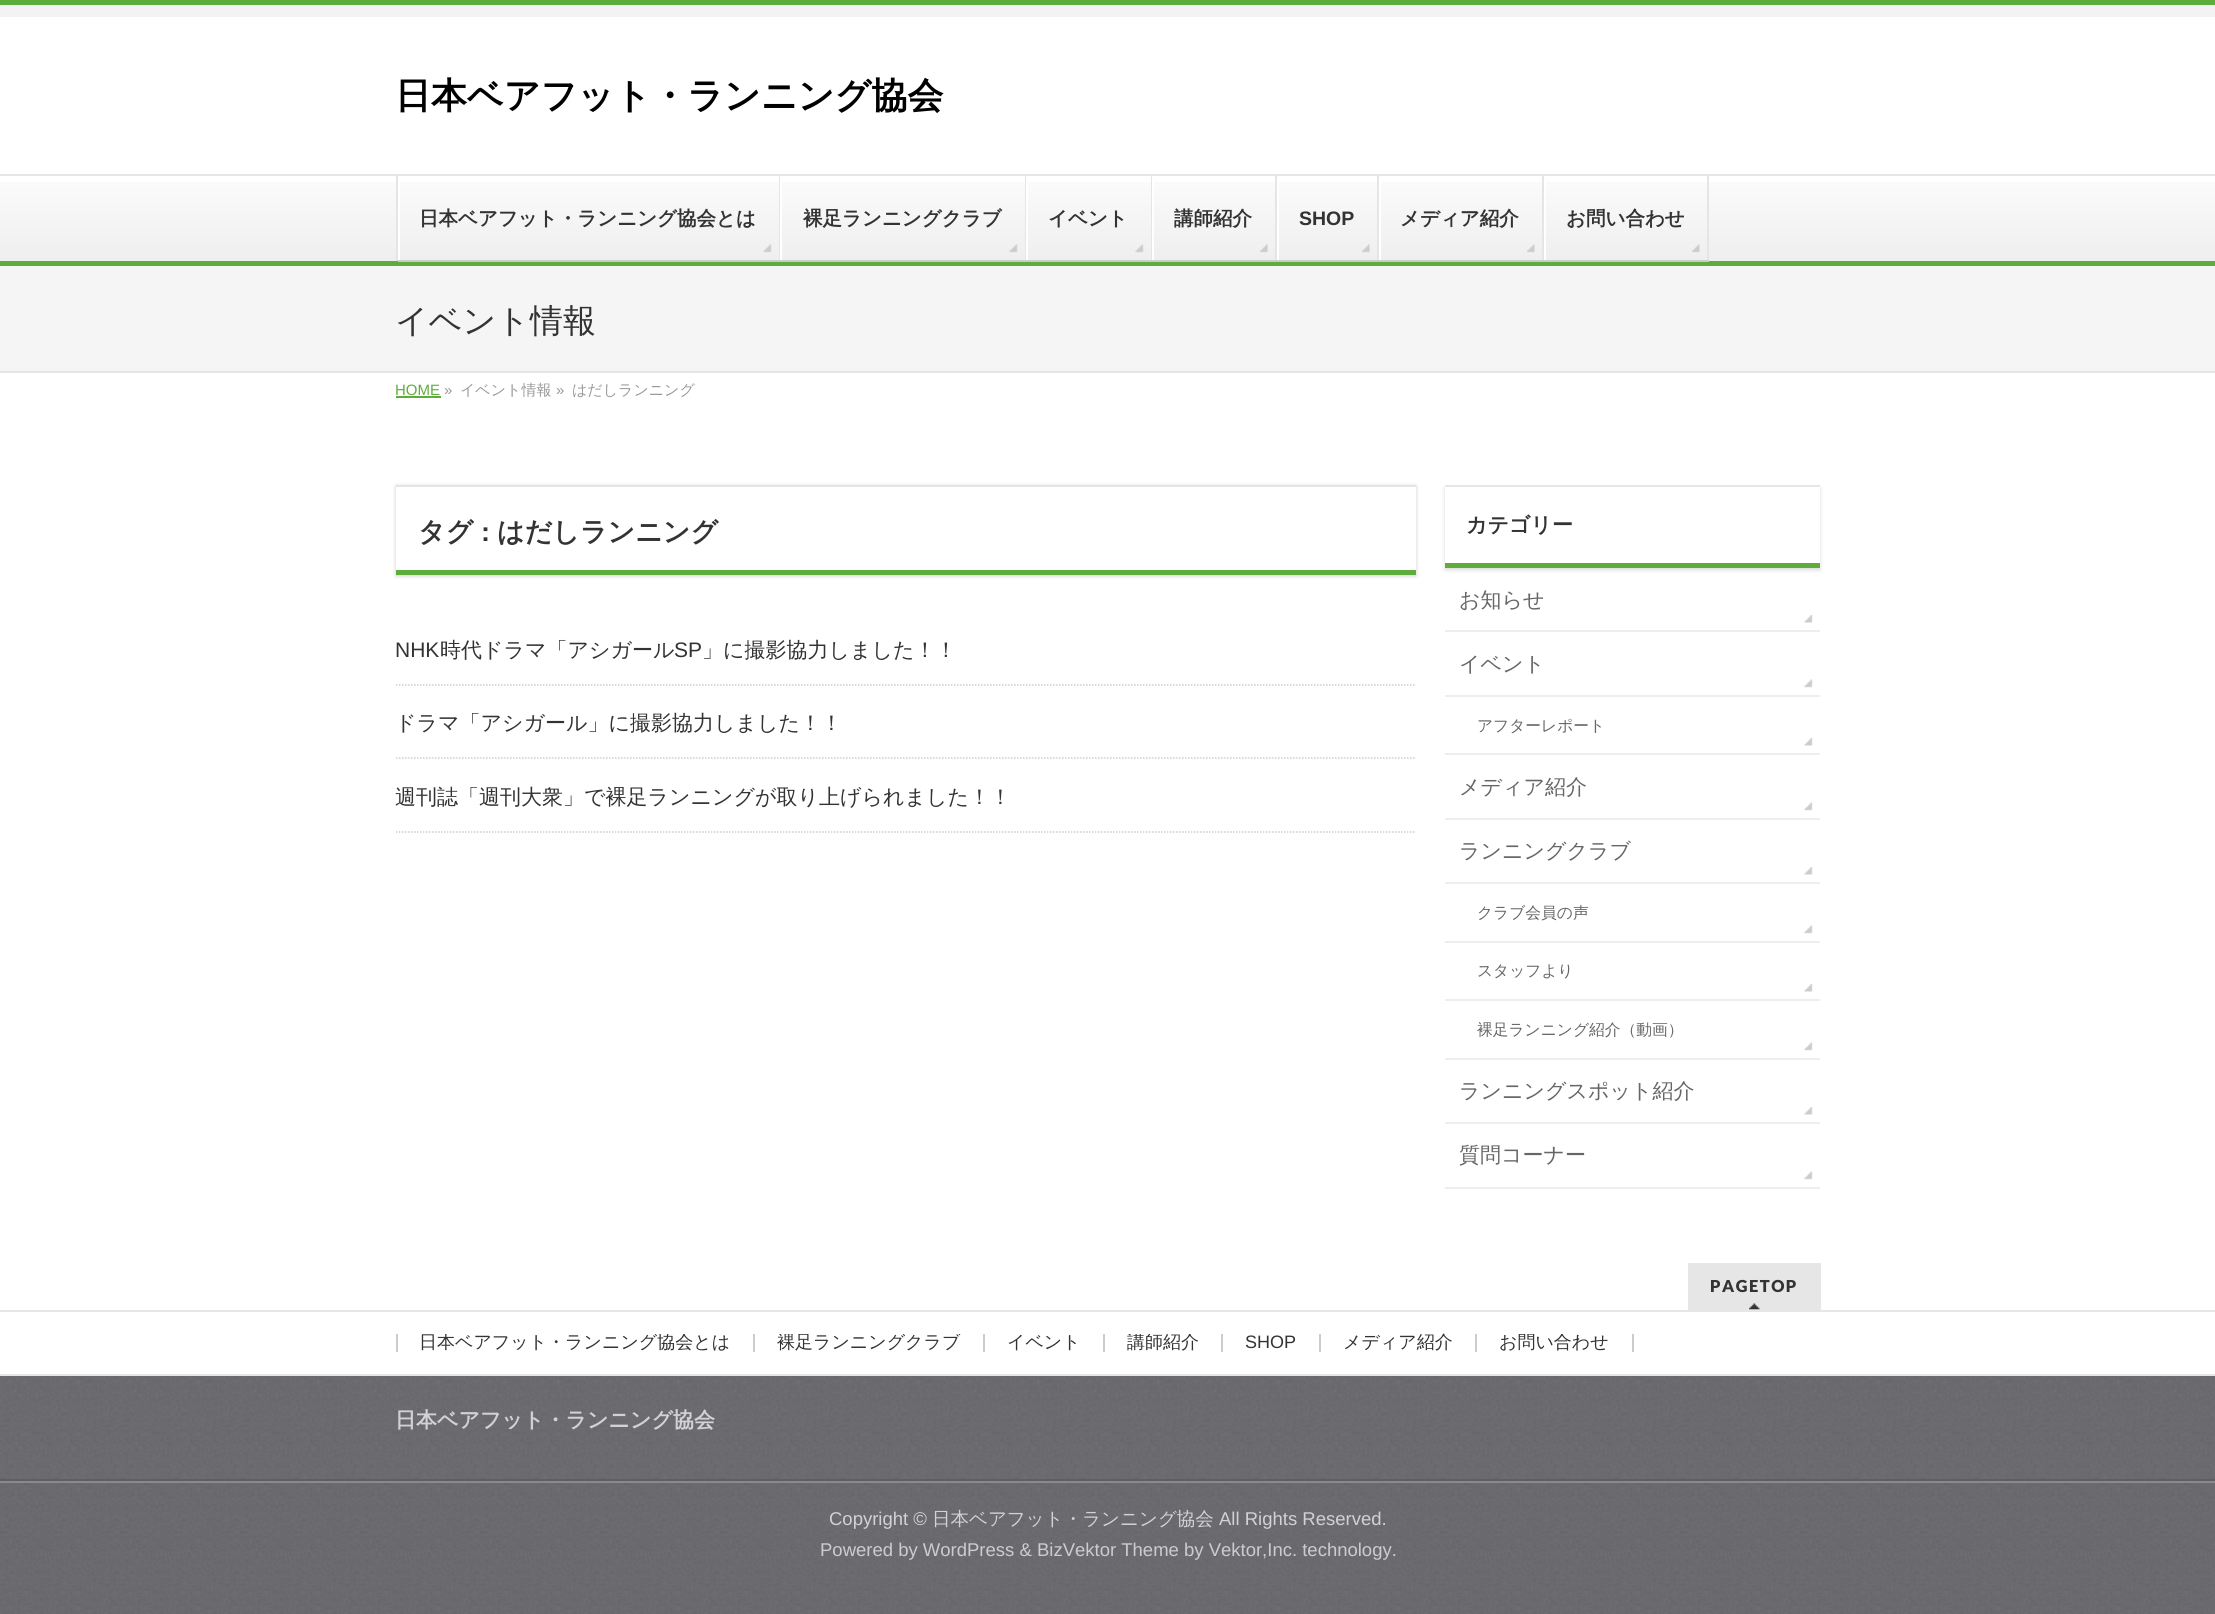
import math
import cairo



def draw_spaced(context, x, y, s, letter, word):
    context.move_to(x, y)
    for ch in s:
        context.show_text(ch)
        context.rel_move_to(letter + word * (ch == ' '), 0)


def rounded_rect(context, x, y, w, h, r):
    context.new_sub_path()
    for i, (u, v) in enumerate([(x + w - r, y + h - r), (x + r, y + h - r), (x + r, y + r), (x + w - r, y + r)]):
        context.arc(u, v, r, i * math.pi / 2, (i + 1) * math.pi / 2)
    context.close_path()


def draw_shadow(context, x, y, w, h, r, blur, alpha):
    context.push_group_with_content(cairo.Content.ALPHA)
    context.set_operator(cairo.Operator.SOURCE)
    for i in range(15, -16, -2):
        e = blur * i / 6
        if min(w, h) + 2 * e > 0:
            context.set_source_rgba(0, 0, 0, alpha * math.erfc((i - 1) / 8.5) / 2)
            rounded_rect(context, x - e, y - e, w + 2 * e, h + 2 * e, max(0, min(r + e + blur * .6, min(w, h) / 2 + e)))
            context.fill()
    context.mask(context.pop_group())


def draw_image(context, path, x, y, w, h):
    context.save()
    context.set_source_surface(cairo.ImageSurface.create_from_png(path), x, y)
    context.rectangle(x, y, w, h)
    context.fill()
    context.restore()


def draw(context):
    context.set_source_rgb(1, 1, 1)
    context.paint()
    context.set_source_rgb(243 / 255, 243 / 255, 243 / 255)
    context.rectangle(0, 5, 2215, 12)
    context.fill()
    context.set_source_rgb(94 / 255, 173 / 255, 60 / 255)
    context.rectangle(0, 0, 2215, 5)
    context.fill()
    draw_image(context, "images/1.png", 0, 182, 2215, 79)
    context.set_source_rgb(229 / 255, 229 / 255, 229 / 255)
    context.rectangle(0, 174, 2215, 2)
    context.fill()
    context.set_source_rgb(94 / 255, 173 / 255, 60 / 255)
    context.rectangle(0, 261, 2215, 5)
    context.fill()
    context.set_source_rgb(229 / 255, 229 / 255, 229 / 255)
    context.rectangle(396, 176, 2, 85)
    context.fill()
    context.set_source_rgb(1, 1, 1)
    context.rectangle(398, 176, 2, 85)
    context.fill()
    draw_image(context, "images/2.png", 763, 244, 9, 9)
    context.set_source_rgb(229 / 255, 229 / 255, 229 / 255)
    context.rectangle(779, 176, 1, 85)
    context.fill()
    context.set_source_rgb(204 / 255, 204 / 255, 204 / 255)
    context.rectangle(398, 260, 382, 2)
    context.fill()
    context.set_source_rgb(1, 1, 1)
    context.rectangle(780, 176, 2, 85)
    context.fill()
    draw_image(context, "images/2.png", 1009, 244, 9, 9)
    context.set_source_rgb(229 / 255, 229 / 255, 229 / 255)
    context.rectangle(1025, 176, 1, 85)
    context.fill()
    context.set_source_rgb(204 / 255, 204 / 255, 204 / 255)
    context.rectangle(780, 260, 246, 2)
    context.fill()
    context.set_source_rgb(1, 1, 1)
    context.rectangle(1026, 176, 2, 85)
    context.fill()
    draw_image(context, "images/3.png", 1135, 244, 9, 9)
    context.set_source_rgb(229 / 255, 229 / 255, 229 / 255)
    context.rectangle(1151, 176, 1, 85)
    context.fill()
    context.set_source_rgb(204 / 255, 204 / 255, 204 / 255)
    context.rectangle(1026, 260, 126, 2)
    context.fill()
    context.set_source_rgb(1, 1, 1)
    context.rectangle(1152, 176, 2, 85)
    context.fill()
    draw_image(context, "images/4.png", 1260, 244, 8, 9)
    context.set_source_rgb(229 / 255, 229 / 255, 229 / 255)
    context.rectangle(1275, 176, 2, 85)
    context.fill()
    context.set_source_rgb(204 / 255, 204 / 255, 204 / 255)
    context.rectangle(1152, 260, 125, 2)
    context.fill()
    context.set_source_rgb(1, 1, 1)
    context.rectangle(1277, 176, 2, 85)
    context.fill()
    draw_image(context, "images/4.png", 1362, 244, 8, 9)
    context.set_source_rgb(229 / 255, 229 / 255, 229 / 255)
    context.rectangle(1377, 176, 2, 85)
    context.fill()
    context.set_source_rgb(204 / 255, 204 / 255, 204 / 255)
    context.rectangle(1277, 260, 102, 2)
    context.fill()
    context.set_source_rgb(1, 1, 1)
    context.rectangle(1379, 176, 2, 85)
    context.fill()
    draw_image(context, "images/5.png", 1527, 244, 8, 9)
    context.set_source_rgb(229 / 255, 229 / 255, 229 / 255)
    context.rectangle(1542, 176, 2, 85)
    context.fill()
    context.set_source_rgb(204 / 255, 204 / 255, 204 / 255)
    context.rectangle(1379, 260, 165, 2)
    context.fill()
    context.set_source_rgb(1, 1, 1)
    context.rectangle(1544, 176, 2, 85)
    context.fill()
    draw_image(context, "images/5.png", 1692, 244, 8, 9)
    context.set_source_rgb(229 / 255, 229 / 255, 229 / 255)
    context.rectangle(1707, 176, 2, 85)
    context.fill()
    context.set_source_rgb(204 / 255, 204 / 255, 204 / 255)
    context.rectangle(1544, 260, 165, 2)
    context.fill()
    context.set_source_rgb(245 / 255, 245 / 255, 245 / 255)
    context.rectangle(0, 266, 2215, 105)
    context.fill()
    context.set_source_rgb(229 / 255, 229 / 255, 229 / 255)
    context.rectangle(0, 371, 2215, 2)
    context.fill()
    context.set_source_rgb(94 / 255, 173 / 255, 60 / 255)
    context.rectangle(396, 396, 45, 2)
    context.fill()
    context.save()
    context.set_fill_rule(cairo.FillRule.EVEN_ODD)
    context.new_path()
    context.move_to(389, 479)
    context.line_to(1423, 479)
    context.line_to(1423, 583)
    context.line_to(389, 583)
    context.close_path()
    context.move_to(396, 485)
    context.line_to(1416, 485)
    context.line_to(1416, 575)
    context.line_to(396, 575)
    context.close_path()
    context.clip()
    context.set_source_rgb(0, 0, 0)
    draw_shadow(context, 396, 486, 1020, 90, 0, 2, 0.2)
    context.restore()
    context.set_source_rgb(229 / 255, 229 / 255, 229 / 255)
    context.rectangle(396, 485, 1020, 2)
    context.fill()
    context.set_source_rgb(94 / 255, 173 / 255, 60 / 255)
    context.rectangle(396, 570, 1020, 5)
    context.fill()
    context.new_path()
    context.move_to(396, 685)
    context.line_to(1416, 685)
    context.set_source_rgb(204 / 255, 204 / 255, 204 / 255)
    context.set_line_width(1.5)
    context.set_dash([1.5, 1.5])
    context.stroke()
    context.new_path()
    context.move_to(396, 758)
    context.line_to(1416, 758)
    context.stroke()
    context.new_path()
    context.move_to(396, 832)
    context.line_to(1416, 832)
    context.stroke()
    context.save()
    context.set_fill_rule(cairo.FillRule.EVEN_ODD)
    context.new_path()
    context.move_to(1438, 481)
    context.line_to(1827, 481)
    context.line_to(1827, 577)
    context.line_to(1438, 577)
    context.close_path()
    context.move_to(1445, 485)
    context.line_to(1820, 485)
    context.line_to(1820, 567)
    context.line_to(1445, 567)
    context.close_path()
    context.clip()
    context.set_source_rgb(0, 0, 0)
    draw_shadow(context, 1445, 488, 375, 82, 0, 2, 0.15)
    context.restore()
    context.set_source_rgb(229 / 255, 229 / 255, 229 / 255)
    context.rectangle(1445, 485, 375, 2)
    context.fill()
    context.set_source_rgb(94 / 255, 173 / 255, 60 / 255)
    context.rectangle(1445, 563, 375, 5)
    context.fill()
    context.set_source_rgb(238 / 255, 238 / 255, 238 / 255)
    context.rectangle(1445, 630, 375, 2)
    context.fill()
    draw_image(context, "images/6.png", 1804, 615, 9, 8)
    context.rectangle(1445, 753, 375, 2)
    context.fill()
    draw_image(context, "images/7.png", 1804, 679, 9, 9)
    context.rectangle(1445, 695, 375, 2)
    context.fill()
    draw_image(context, "images/6.png", 1804, 738, 9, 8)
    context.rectangle(1445, 818, 375, 2)
    context.fill()
    draw_image(context, "images/7.png", 1804, 802, 9, 9)
    context.rectangle(1445, 1058, 375, 2)
    context.fill()
    draw_image(context, "images/6.png", 1804, 867, 9, 8)
    context.rectangle(1445, 882, 375, 2)
    context.fill()
    draw_image(context, "images/7.png", 1804, 925, 9, 9)
    context.rectangle(1445, 941, 375, 2)
    context.fill()
    draw_image(context, "images/6.png", 1804, 984, 9, 8)
    context.rectangle(1445, 999, 375, 2)
    context.fill()
    draw_image(context, "images/7.png", 1804, 1042, 9, 9)
    context.rectangle(1445, 1122, 375, 2)
    context.fill()
    draw_image(context, "images/6.png", 1804, 1107, 9, 8)
    context.rectangle(1445, 1187, 375, 2)
    context.fill()
    draw_image(context, "images/7.png", 1804, 1171, 9, 9)
    context.set_source_rgb(230 / 255, 230 / 255, 230 / 255)
    context.rectangle(1688, 1263, 133, 47)
    context.fill()
    draw_image(context, "images/8.png", 1749, 1303, 11, 7)
    context.rectangle(0, 1310, 2215, 2)
    context.fill()
    context.rectangle(0, 1374, 2215, 2)
    context.fill()
    context.set_source_rgb(204 / 255, 204 / 255, 204 / 255)
    context.rectangle(753, 1334, 2, 18)
    context.fill()
    context.rectangle(396, 1334, 2, 18)
    context.fill()
    context.rectangle(983, 1334, 2, 18)
    context.fill()
    context.rectangle(1103, 1334, 2, 18)
    context.fill()
    context.rectangle(1221, 1334, 2, 18)
    context.fill()
    context.rectangle(1319, 1334, 2, 18)
    context.fill()
    context.rectangle(1475, 1334, 2, 18)
    context.fill()
    context.rectangle(1632, 1334, 2, 18)
    context.fill()
    draw_image(context, "images/9.png", 0, 1376, 2215, 103)
    context.set_source_rgb(95 / 255, 94 / 255, 99 / 255)
    context.rectangle(0, 1479, 2215, 2)
    context.fill()
    draw_image(context, "images/10.png", 0, 1483, 2215, 131)
    context.set_source_rgb(138 / 255, 137 / 255, 140 / 255)
    context.rectangle(0, 1481, 2215, 2)
    context.fill()
    context.select_font_face("WenQuanYi Zen Hei", cairo.FontSlant.NORMAL, cairo.FontWeight.BOLD)
    context.set_font_size(36)
    context.set_source_rgb(0, 0, 0)
    context.move_to(395, 108)
    context.show_text("日本ベアフット・ランニング協会")
    context.set_font_size(19.5)
    context.set_source_rgb(51 / 255, 51 / 255, 51 / 255)
    context.move_to(419, 225)
    context.show_text("日本ベアフット・ランニング協会とは")
    context.move_to(803, 225)
    context.show_text("裸足ランニングクラブ")
    context.move_to(1048, 225)
    context.show_text("イベント")
    context.move_to(1174, 225)
    context.show_text("講師紹介")
    context.select_font_face("Liberation Sans", cairo.FontSlant.NORMAL, cairo.FontWeight.BOLD)
    context.move_to(1299, 225)
    context.show_text("SHOP")
    context.select_font_face("WenQuanYi Zen Hei", cairo.FontSlant.NORMAL, cairo.FontWeight.BOLD)
    context.move_to(1400, 225)
    context.show_text("メディア紹介")
    context.move_to(1566, 225)
    context.show_text("お問い合わせ")
    context.select_font_face("WenQuanYi Zen Hei Medium")
    context.set_font_size(33)
    context.move_to(395, 332)
    context.show_text("イベント情報")
    context.select_font_face("Liberation Sans")
    context.set_font_size(15)
    context.set_source_rgb(94 / 255, 173 / 255, 60 / 255)
    context.move_to(395, 395)
    context.show_text("HOME")
    context.set_source_rgb(153 / 255, 153 / 255, 153 / 255)
    context.move_to(444, 395)
    context.show_text("»")
    context.select_font_face("WenQuanYi Zen Hei Medium")
    context.move_to(460, 395)
    context.show_text("イベント情報")
    context.select_font_face("Liberation Sans")
    context.move_to(556, 395)
    context.show_text("»")
    context.select_font_face("WenQuanYi Zen Hei Medium")
    context.move_to(572, 395)
    context.show_text("はだしランニング")
    context.select_font_face("WenQuanYi Zen Hei", cairo.FontSlant.NORMAL, cairo.FontWeight.BOLD)
    context.set_font_size(27)
    context.set_source_rgb(51 / 255, 51 / 255, 51 / 255)
    context.move_to(418, 541)
    context.show_text("タグ")
    context.select_font_face("Liberation Sans", cairo.FontSlant.NORMAL, cairo.FontWeight.BOLD)
    context.move_to(481, 541)
    context.show_text(":")
    context.select_font_face("WenQuanYi Zen Hei", cairo.FontSlant.NORMAL, cairo.FontWeight.BOLD)
    context.move_to(497, 541)
    context.show_text("はだしランニング")
    context.select_font_face("Liberation Sans")
    context.set_font_size(21)
    context.move_to(395, 657)
    context.show_text("NHK")
    context.select_font_face("WenQuanYi Zen Hei Medium")
    context.move_to(440, 657)
    context.show_text("時代ドラマ「アシガール")
    context.select_font_face("Liberation Sans")
    context.move_to(674, 657)
    context.show_text("SP")
    context.select_font_face("WenQuanYi Zen Hei Medium")
    context.move_to(702, 657)
    context.show_text("」に撮影協力しました！！")
    context.move_to(395, 730)
    context.show_text("ドラマ「アシガール」に撮影協力しました！！")
    context.move_to(395, 804)
    context.show_text("週刊誌「週刊大衆」で裸足ランニングが取り上げられました！！")
    context.select_font_face("WenQuanYi Zen Hei", cairo.FontSlant.NORMAL, cairo.FontWeight.BOLD)
    context.move_to(1466, 532)
    context.show_text("カテゴリー")
    context.select_font_face("WenQuanYi Zen Hei Medium")
    context.set_source_rgb(102 / 255, 102 / 255, 102 / 255)
    context.move_to(1459, 607)
    context.show_text("お知らせ")
    context.move_to(1459, 671)
    context.show_text("イベント")
    context.set_font_size(15.75)
    context.move_to(1477, 731)
    context.show_text("アフターレポート")
    context.set_font_size(21)
    context.move_to(1459, 794)
    context.show_text("メディア紹介")
    context.move_to(1459, 858)
    context.show_text("ランニングクラブ")
    context.set_font_size(15.75)
    context.move_to(1477, 918)
    context.show_text("クラブ会員の声")
    context.move_to(1477, 976)
    context.show_text("スタッフより")
    context.move_to(1477, 1035)
    context.show_text("裸足ランニング紹介（動画）")
    context.set_font_size(21)
    context.move_to(1459, 1098)
    context.show_text("ランニングスポット紹介")
    context.move_to(1459, 1162)
    context.show_text("質問コーナー")
    context.select_font_face("Lato Black")
    context.set_font_size(16.5)
    context.set_source_rgb(51 / 255, 51 / 255, 51 / 255)
    draw_spaced(context, 1710, 1292, "PAGETOP", 1.5, 0)
    context.save()
    context.rectangle(398, 1334, 355, 18)
    context.clip()
    context.select_font_face("WenQuanYi Zen Hei Medium")
    context.set_font_size(18)
    context.move_to(419, 1348)
    context.show_text("日本ベアフット・ランニング協会とは")
    context.restore()
    context.save()
    context.rectangle(755, 1334, 228, 18)
    context.clip()
    context.select_font_face("WenQuanYi Zen Hei Medium")
    context.set_font_size(18)
    context.move_to(777, 1348)
    context.show_text("裸足ランニングクラブ")
    context.restore()
    context.select_font_face("WenQuanYi Zen Hei Medium")
    context.set_font_size(18)
    context.move_to(1007, 1348)
    context.show_text("イベント")
    context.save()
    context.rectangle(1104, 1334, 117, 18)
    context.clip()
    context.move_to(1127, 1348)
    context.show_text("講師紹介")
    context.restore()
    context.select_font_face("Liberation Sans")
    context.move_to(1245, 1348)
    context.show_text("SHOP")
    context.select_font_face("WenQuanYi Zen Hei Medium")
    context.move_to(1343, 1348)
    context.show_text("メディア紹介")
    context.save()
    context.rectangle(1476, 1334, 156, 18)
    context.clip()
    context.move_to(1499, 1348)
    context.show_text("お問い合わせ")
    context.restore()
    context.select_font_face("WenQuanYi Zen Hei", cairo.FontSlant.NORMAL, cairo.FontWeight.BOLD)
    context.set_font_size(21)
    context.set_source_rgb(210 / 255, 210 / 255, 211 / 255)
    context.move_to(395, 1427)
    context.show_text("日本ベアフット・ランニング協会")
    context.select_font_face("Liberation Sans")
    context.set_font_size(18.5)
    context.move_to(829, 1525)
    context.show_text("Copyright ©")
    context.select_font_face("WenQuanYi Zen Hei Medium")
    context.move_to(932, 1525)
    context.show_text("日本ベアフット・ランニング協会")
    context.select_font_face("Liberation Sans")
    context.move_to(1219, 1525)
    context.show_text("All Rights Reserved.")
    context.set_source_rgb(204 / 255, 204 / 255, 204 / 255)
    context.move_to(820, 1556)
    context.show_text("Powered by WordPress & BizVektor Theme by Vektor,Inc. technology.")


surface = cairo.ImageSurface(cairo.Format.RGB24, 2215, 1614)
context = cairo.Context(surface)
options = cairo.FontOptions()
options.set_hint_metrics(cairo.HintMetrics.OFF)
options.set_hint_style(cairo.HintStyle.NONE)
context.set_font_options(options)
context.set_miter_limit(4)
draw(context)
surface.write_to_png("out.png")
